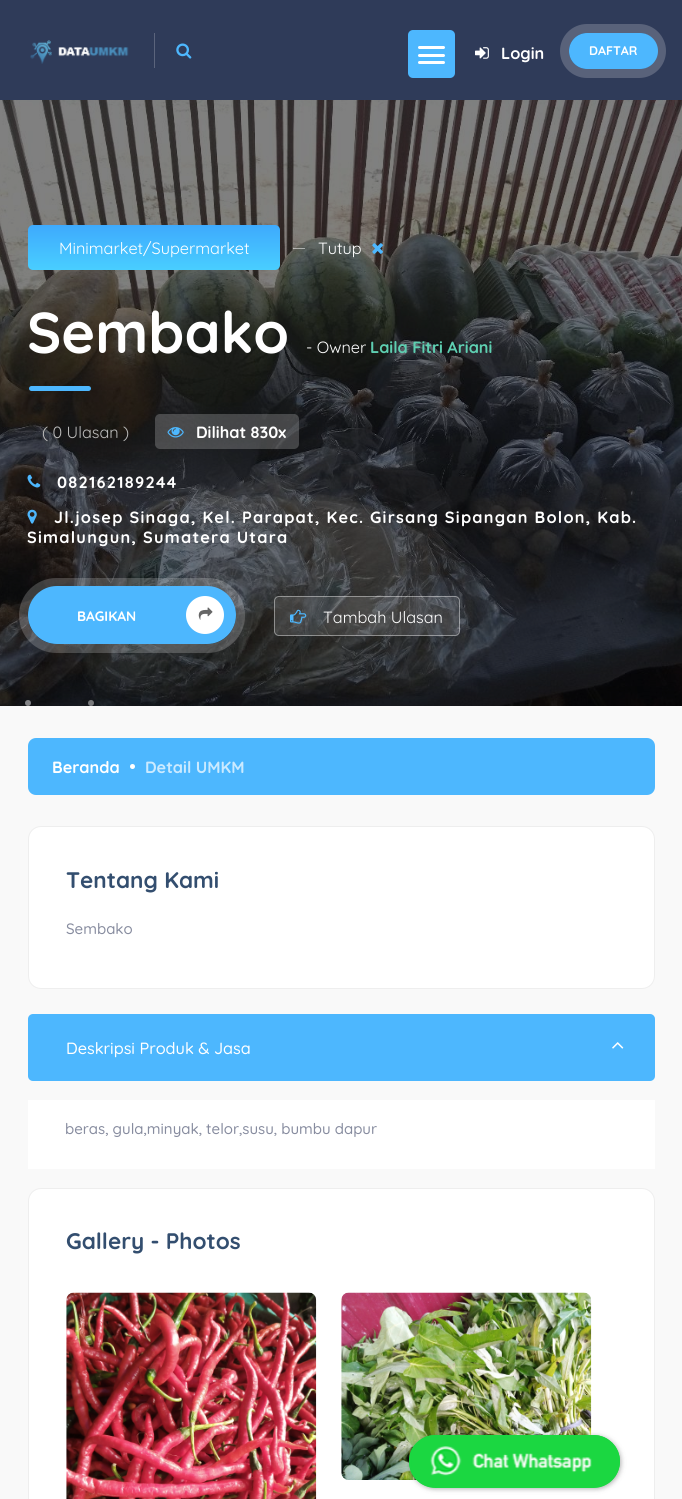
import math
import cairo



def draw_spaced(context, x, y, s, letter, word):
    context.move_to(x, y)
    for ch in s:
        context.show_text(ch)
        context.rel_move_to(letter + word * (ch == ' '), 0)


def rounded_rect(context, x, y, w, h, r):
    context.new_sub_path()
    for i, (u, v) in enumerate([(x + w - r, y + h - r), (x + r, y + h - r), (x + r, y + r), (x + w - r, y + r)]):
        context.arc(u, v, r, i * math.pi / 2, (i + 1) * math.pi / 2)
    context.close_path()


def draw_shadow(context, x, y, w, h, r, blur, alpha):
    context.push_group_with_content(cairo.Content.ALPHA)
    context.set_operator(cairo.Operator.SOURCE)
    for i in range(15, -16, -2):
        e = blur * i / 6
        if min(w, h) + 2 * e > 0:
            context.set_source_rgba(0, 0, 0, alpha * math.erfc((i - 1) / 8.5) / 2)
            rounded_rect(context, x - e, y - e, w + 2 * e, h + 2 * e, max(0, min(r + e + blur * .6, min(w, h) / 2 + e)))
            context.fill()
    context.mask(context.pop_group())


def draw_image(context, path, x, y, w, h):
    context.save()
    context.set_source_surface(cairo.ImageSurface.create_from_png(path), x, y)
    context.rectangle(x, y, w, h)
    context.fill()
    context.restore()


def draw(context):
    context.set_source_rgb(47 / 255, 59 / 255, 89 / 255)
    context.paint()
    draw_image(context, "images/1.png", 30, 40, 99, 24)
    context.set_source_rgb(91 / 255, 100 / 255, 124 / 255)
    context.rectangle(154, 33, 1, 35)
    context.fill()
    draw_image(context, "images/2.png", 176, 43, 16, 16)
    context.set_source_rgb(77 / 255, 183 / 255, 254 / 255)
    rounded_rect(context, 408, 30, 47, 48, 5)
    context.fill()
    context.set_source_rgb(1, 1, 1)
    rounded_rect(context, 418, 46, 27, 3, 1.5)
    context.fill()
    rounded_rect(context, 418, 54, 27, 3, 1.5)
    context.fill()
    rounded_rect(context, 418, 61, 27, 3, 1.5)
    context.fill()
    draw_image(context, "images/3.png", 475, 47, 14, 12)
    rounded_rect(context, 564.5, 28.5, 97, 45, 22.5)
    context.set_source_rgb(89 / 255, 98 / 255, 122 / 255)
    context.set_line_width(9)
    context.stroke()
    context.set_source_rgb(77 / 255, 183 / 255, 254 / 255)
    rounded_rect(context, 569, 33, 89, 36, 18)
    context.fill()
    draw_image(context, "images/4.png", 0, 100, 682, 606)
    gradient = cairo.LinearGradient(154, 225, 154, 270)
    gradient.add_color_stop_rgba(0, 62 / 255, 170 / 255, 253 / 255, 1)
    gradient.add_color_stop_rgba(1, 73 / 255, 206 / 255, 1, 1)
    context.set_source(gradient)
    rounded_rect(context, 28, 225, 252, 45, 5)
    context.fill()
    context.set_source_rgba(1, 1, 1, 0.51)
    context.rectangle(293, 248, 12, 1)
    context.fill()
    draw_image(context, "images/5.png", 372, 243, 11, 11)
    context.set_source_rgb(77 / 255, 183 / 255, 254 / 255)
    rounded_rect(context, 29, 386, 62, 5, 2.5)
    context.fill()
    context.set_source_rgba(1, 1, 1, 0.21)
    rounded_rect(context, 155, 414, 144, 35, 5)
    context.fill()
    draw_image(context, "images/6.png", 167, 427, 17, 11)
    draw_image(context, "images/7.png", 27, 474, 14, 14)
    draw_image(context, "images/8.png", 27, 509, 10, 15)
    rounded_rect(context, 23.5, 582.5, 217, 66, 33)
    context.set_source_rgba(1, 1, 1, 0.2)
    context.stroke()
    context.set_source_rgb(77 / 255, 183 / 255, 254 / 255)
    rounded_rect(context, 28, 586, 208, 58, 29)
    context.fill()
    context.set_source_rgb(1, 1, 1)
    context.arc(205, 615, 19, 0, 2 * math.pi)
    context.fill()
    draw_image(context, "images/9.png", 198, 607, 15, 13)
    context.set_source_rgba(1, 1, 1, 0.11)
    rounded_rect(context, 274, 596, 186, 40, 5)
    context.fill()
    rounded_rect(context, 274.5, 596.5, 185, 39, 4.5)
    context.set_source_rgba(1, 1, 1, 0.41)
    context.set_line_width(1)
    context.stroke()
    draw_image(context, "images/10.png", 290, 609, 17, 15)
    context.set_source_rgba(1, 1, 1, 0.48)
    context.arc(28, 703, 3, 0, 2 * math.pi)
    context.fill()
    context.set_source_rgba(1, 1, 1, 0.42)
    context.arc(91, 703, 3, 0, 2 * math.pi)
    context.fill()
    context.set_source_rgb(249 / 255, 249 / 255, 249 / 255)
    context.rectangle(0, 706, 682, 793)
    context.fill()
    context.set_source_rgb(77 / 255, 183 / 255, 254 / 255)
    rounded_rect(context, 28, 738, 627, 57, 8)
    context.fill()
    context.set_source_rgb(1, 1, 1)
    context.arc(132.5, 766.5, 2.5, 0, 2 * math.pi)
    context.fill()
    rounded_rect(context, 28.5, 826.5, 626, 162, 12.5)
    context.fill_preserve()
    context.set_source_rgb(238 / 255, 238 / 255, 238 / 255)
    context.stroke()
    context.set_source_rgb(77 / 255, 183 / 255, 254 / 255)
    rounded_rect(context, 28, 1014, 627, 67, 5)
    context.fill()
    draw_image(context, "images/11.png", 612, 1042, 12, 7)
    context.set_source_rgb(1, 1, 1)
    context.rectangle(28, 1100, 627, 69)
    context.fill()
    rounded_rect(context, 28.5, 1188.5, 626, 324, 12.5)
    context.fill_preserve()
    context.set_source_rgb(238 / 255, 238 / 255, 238 / 255)
    context.stroke()
    draw_image(context, "images/12.png", 66, 1292, 251, 207)
    draw_image(context, "images/13.png", 341, 1292, 251, 188)
    context.set_source_rgb(60 / 255, 60 / 255, 60 / 255)
    draw_shadow(context, 410, 1436, 211, 53, 26.5, 2.5, 0.4)
    context.set_source_rgb(27 / 255, 215 / 255, 65 / 255)
    rounded_rect(context, 409, 1435, 211, 53, 26.5)
    context.fill()
    draw_image(context, "images/14.png", 409, 1435, 211, 53)
    context.select_font_face("Quicksand", cairo.FontSlant.NORMAL, cairo.FontWeight.BOLD)
    context.set_font_size(16.25)
    context.set_source_rgb(1, 1, 1)
    context.move_to(501, 59)
    context.show_text("Login")
    context.set_font_size(12.5)
    context.move_to(589, 55)
    context.show_text("DAFTAR")
    context.select_font_face("Quicksand")
    context.set_font_size(16.25)
    context.move_to(59, 254)
    context.show_text("Minimarket/Supermarket")
    context.move_to(318, 254)
    context.show_text("Tutup")
    context.select_font_face("Quicksand", cairo.FontSlant.NORMAL, cairo.FontWeight.BOLD)
    context.set_font_size(57.5)
    context.move_to(27, 353)
    context.show_text("Sembako")
    context.select_font_face("Quicksand")
    context.set_font_size(16.25)
    context.move_to(306, 353)
    context.show_text("- Owner")
    context.select_font_face("Quicksand", cairo.FontSlant.NORMAL, cairo.FontWeight.BOLD)
    context.set_source_rgb(94 / 255, 207 / 255, 177 / 255)
    context.move_to(370, 353)
    context.show_text("Laila Fitri Ariani")
    context.select_font_face("Quicksand")
    context.set_source_rgb(189 / 255, 189 / 255, 188 / 255)
    context.move_to(42, 438)
    context.show_text("( 0 Ulasan )")
    context.select_font_face("Quicksand", cairo.FontSlant.NORMAL, cairo.FontWeight.BOLD)
    context.set_source_rgb(1, 1, 1)
    context.move_to(196, 438)
    context.show_text("Dilihat 830x")
    draw_spaced(context, 57, 488, "082162189244", 1.25, 0)
    draw_spaced(context, 54, 523, "Jl.josep Sinaga, Kel. Parapat, Kec. Girsang Sipangan Bolon, Kab.", 1.25, 0)
    draw_spaced(context, 27, 543, "Simalungun, Sumatera Utara", 1.25, 0)
    context.set_font_size(13.75)
    context.move_to(77, 621)
    context.show_text("BAGIKAN")
    context.select_font_face("Quicksand")
    context.set_font_size(16.25)
    context.move_to(323, 623)
    context.show_text("Tambah Ulasan")
    context.select_font_face("Quicksand", cairo.FontSlant.NORMAL, cairo.FontWeight.BOLD)
    context.move_to(52, 773)
    context.show_text("Beranda")
    context.set_source_rgb(203 / 255, 234 / 255, 1)
    context.move_to(145, 773)
    context.show_text("Detail UMKM")
    context.set_font_size(22.5)
    context.set_source_rgb(51 / 255, 78 / 255, 111 / 255)
    context.move_to(66, 888)
    context.show_text("Tentang Kami")
    context.select_font_face("Quicksand Medium")
    context.set_font_size(15)
    context.set_source_rgb(135 / 255, 140 / 255, 159 / 255)
    context.move_to(66, 934)
    context.show_text("Sembako")
    context.set_font_size(16.25)
    context.set_source_rgb(1, 1, 1)
    context.move_to(66, 1054)
    context.show_text("Deskripsi Produk & Jasa")
    context.set_font_size(15)
    context.set_source_rgb(135 / 255, 140 / 255, 159 / 255)
    context.move_to(65, 1134)
    context.show_text("beras, gula,minyak, telor,susu, bumbu dapur")
    context.select_font_face("Quicksand", cairo.FontSlant.NORMAL, cairo.FontWeight.BOLD)
    context.set_font_size(22.5)
    context.set_source_rgb(51 / 255, 78 / 255, 111 / 255)
    context.move_to(66, 1249)
    context.show_text("Gallery - Photos")


surface = cairo.ImageSurface(cairo.Format.RGB24, 682, 1499)
context = cairo.Context(surface)
options = cairo.FontOptions()
options.set_hint_metrics(cairo.HintMetrics.OFF)
options.set_hint_style(cairo.HintStyle.NONE)
context.set_font_options(options)
context.set_miter_limit(4)
draw(context)
surface.write_to_png("out.png")
